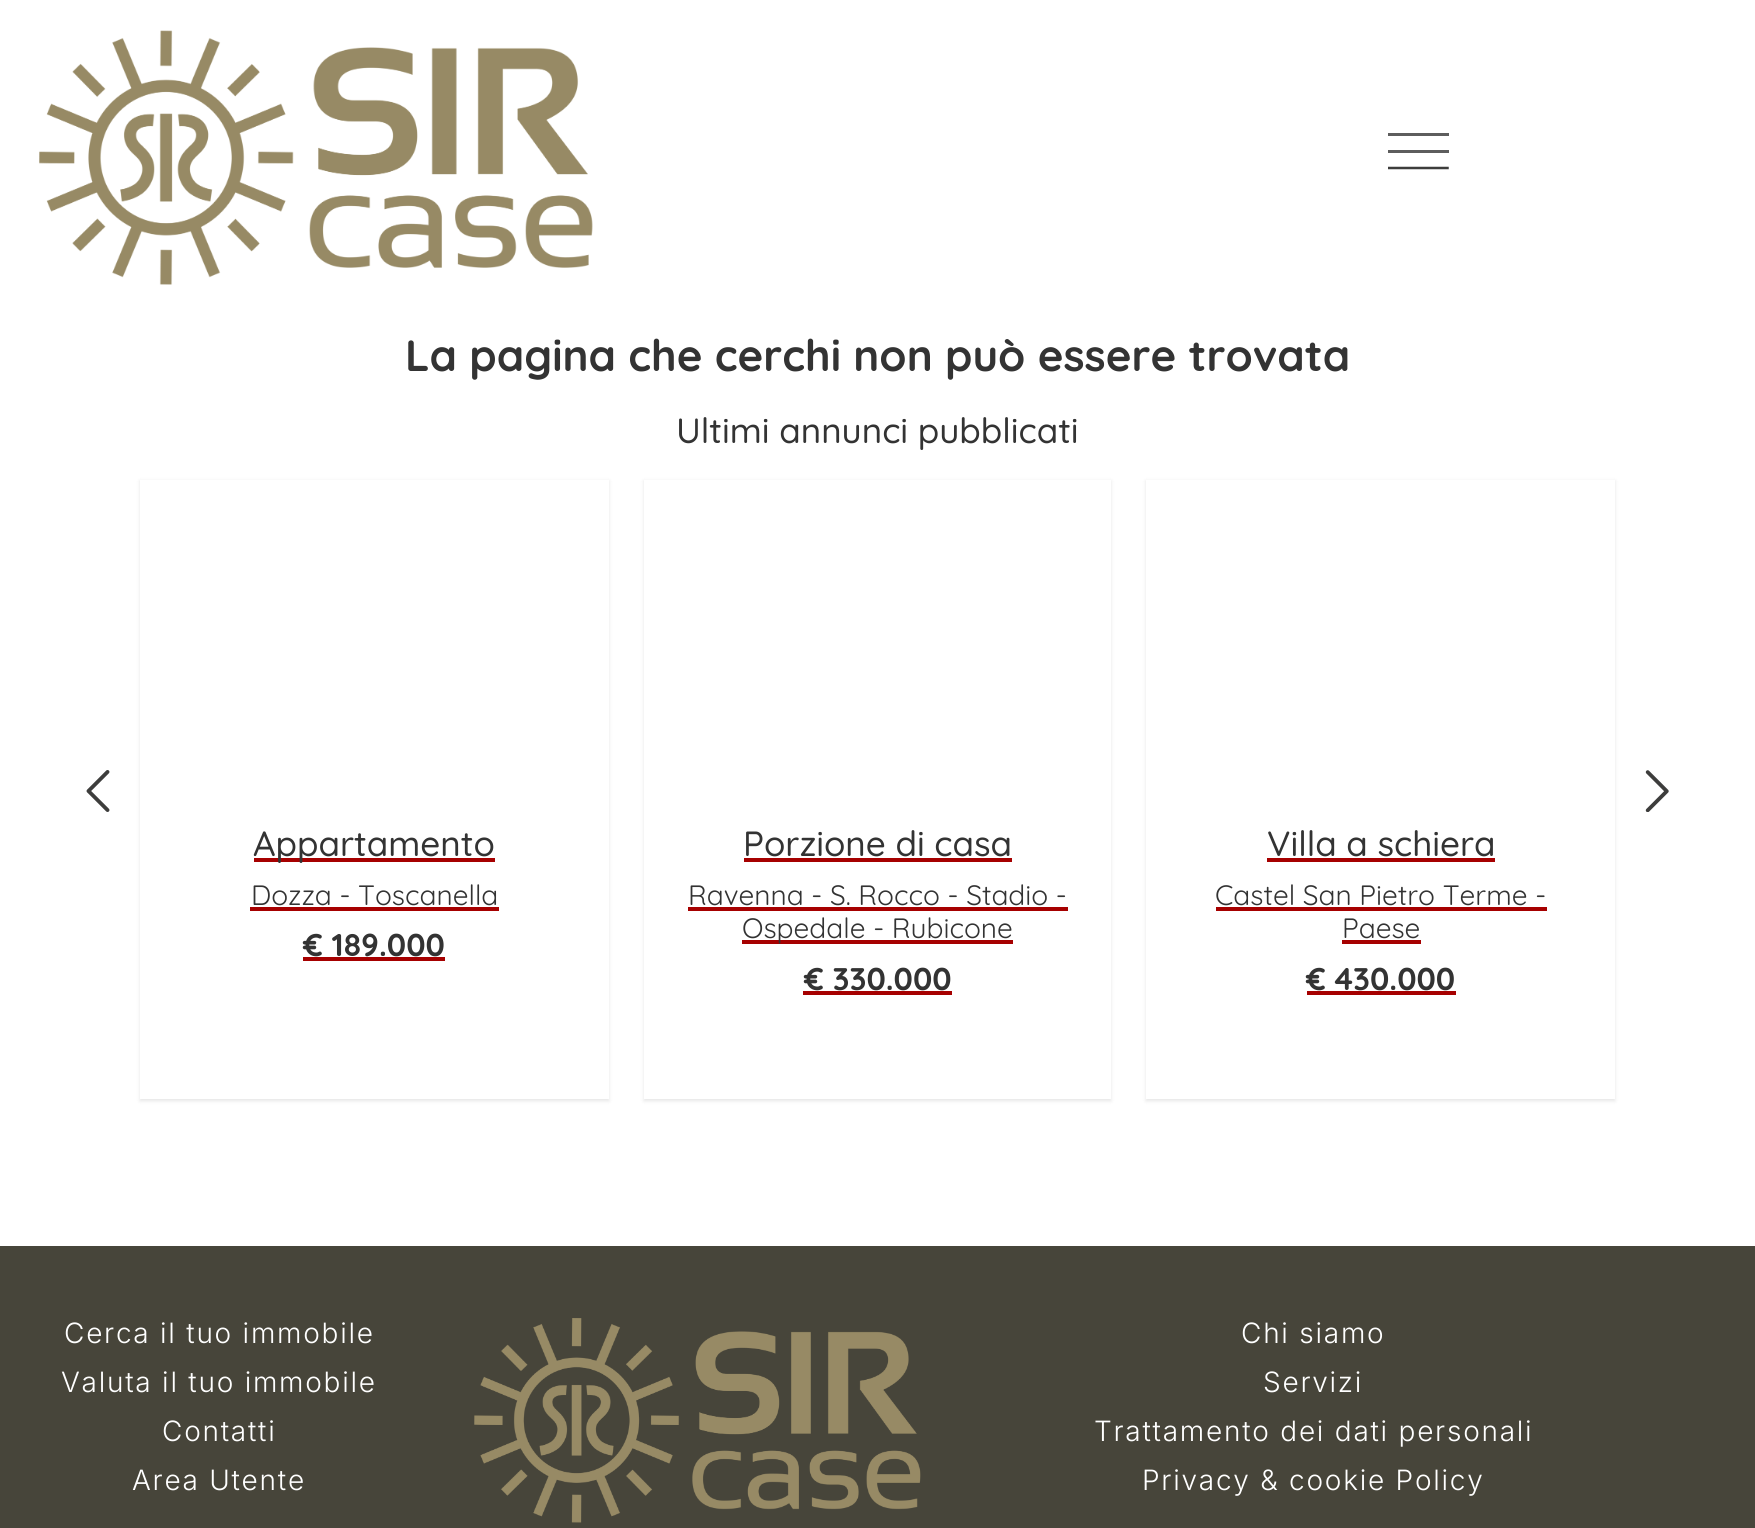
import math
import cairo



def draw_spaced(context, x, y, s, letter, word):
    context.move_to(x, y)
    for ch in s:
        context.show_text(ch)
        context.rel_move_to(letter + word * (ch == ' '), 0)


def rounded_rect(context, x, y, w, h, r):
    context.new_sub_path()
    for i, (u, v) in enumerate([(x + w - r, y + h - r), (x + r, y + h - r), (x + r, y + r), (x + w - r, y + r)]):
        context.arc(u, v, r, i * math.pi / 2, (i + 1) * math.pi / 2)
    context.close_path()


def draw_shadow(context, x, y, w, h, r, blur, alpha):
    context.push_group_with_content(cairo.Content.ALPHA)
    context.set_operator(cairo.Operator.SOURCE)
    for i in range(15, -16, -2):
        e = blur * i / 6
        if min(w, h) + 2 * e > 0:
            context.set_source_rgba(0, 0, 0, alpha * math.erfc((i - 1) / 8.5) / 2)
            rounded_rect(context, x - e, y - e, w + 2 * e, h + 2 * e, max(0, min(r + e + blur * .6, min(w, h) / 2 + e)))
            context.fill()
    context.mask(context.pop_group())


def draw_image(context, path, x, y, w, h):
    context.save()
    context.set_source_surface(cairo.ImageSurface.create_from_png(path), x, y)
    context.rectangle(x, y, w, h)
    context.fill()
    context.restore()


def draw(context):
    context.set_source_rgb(1, 1, 1)
    context.paint()
    draw_image(context, "images/1.png", 39, 30, 554, 255)
    context.set_source_rgb(93 / 255, 93 / 255, 93 / 255)
    context.rectangle(1388, 133, 61, 3)
    context.fill()
    context.rectangle(1388, 150, 61, 3)
    context.fill()
    context.save()
    context.rectangle(1388, 121, 61, 61)
    context.clip()
    context.new_path()
    context.move_to(1389, 168)
    context.line_to(1447.5, 168)
    context.set_source_rgb(61 / 255, 61 / 255, 60 / 255)
    context.set_line_width(2.5)
    context.set_line_cap(cairo.LineCap.SQUARE)
    context.stroke()
    context.restore()
    draw_image(context, "images/2.png", 86, 770, 24, 42)
    draw_image(context, "images/3.png", 1645, 770, 24, 42)
    context.save()
    context.set_fill_rule(cairo.FillRule.EVEN_ODD)
    context.new_path()
    context.move_to(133, 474)
    context.line_to(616, 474)
    context.line_to(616, 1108)
    context.line_to(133, 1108)
    context.close_path()
    context.move_to(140, 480)
    context.line_to(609, 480)
    context.line_to(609, 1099)
    context.line_to(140, 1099)
    context.close_path()
    context.clip()
    context.set_source_rgb(0, 0, 0)
    draw_shadow(context, 140, 481, 469, 620, 0, 2, 0.1)
    context.restore()
    context.set_source_rgb(166 / 255, 0, 0)
    context.rectangle(254, 858, 241, 4)
    context.fill()
    context.rectangle(250, 907, 249, 4)
    context.fill()
    context.rectangle(303, 957, 142, 4)
    context.fill()
    context.save()
    context.set_fill_rule(cairo.FillRule.EVEN_ODD)
    context.new_path()
    context.move_to(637, 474)
    context.line_to(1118, 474)
    context.line_to(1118, 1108)
    context.line_to(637, 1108)
    context.close_path()
    context.move_to(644, 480)
    context.line_to(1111, 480)
    context.line_to(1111, 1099)
    context.line_to(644, 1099)
    context.close_path()
    context.clip()
    context.set_source_rgb(0, 0, 0)
    draw_shadow(context, 644, 481, 467, 620, 0, 2, 0.1)
    context.restore()
    context.rectangle(744, 858, 268, 4)
    context.fill()
    context.rectangle(688, 907, 380, 4)
    context.fill()
    context.rectangle(742, 940, 271, 4)
    context.fill()
    context.rectangle(803, 991, 149, 4)
    context.fill()
    context.set_source_rgb(0, 0, 0)
    draw_shadow(context, 1146, 481, 469, 620, 0, 2, 0.1)
    context.set_source_rgb(1, 1, 1)
    context.rectangle(1146, 480, 469, 619)
    context.fill()
    context.set_source_rgb(166 / 255, 0, 0)
    context.rectangle(1267, 858, 228, 4)
    context.fill()
    context.rectangle(1216, 907, 331, 4)
    context.fill()
    context.rectangle(1342, 940, 79, 4)
    context.fill()
    context.rectangle(1307, 991, 149, 4)
    context.fill()
    context.set_source_rgb(71 / 255, 69 / 255, 58 / 255)
    context.rectangle(0, 1246, 1755, 282)
    context.fill()
    draw_image(context, "images/4.png", 474, 1318, 447, 205)
    context.select_font_face("Quicksand", cairo.FontSlant.NORMAL, cairo.FontWeight.BOLD)
    context.set_font_size(43.75)
    context.set_source_rgb(51 / 255, 51 / 255, 51 / 255)
    context.move_to(405, 371)
    context.show_text("La pagina che cerchi non può essere trovata")
    context.select_font_face("Quicksand Medium")
    context.set_font_size(35)
    context.move_to(676, 443)
    context.show_text("Ultimi annunci pubblicati")
    context.move_to(253, 856)
    context.show_text("Appartamento")
    context.select_font_face("Quicksand")
    context.set_font_size(28)
    context.move_to(251, 905)
    context.show_text("Dozza - Toscanella")
    context.select_font_face("Quicksand", cairo.FontSlant.NORMAL, cairo.FontWeight.BOLD)
    context.set_font_size(31.5)
    context.move_to(303, 956)
    context.show_text("€ 189.000")
    context.select_font_face("Quicksand Medium")
    context.set_font_size(35)
    context.move_to(743, 856)
    context.show_text("Porzione di casa")
    context.select_font_face("Quicksand")
    context.set_font_size(28)
    context.move_to(688, 905)
    context.show_text("Ravenna - S. Rocco - Stadio -")
    context.move_to(742, 938)
    context.show_text("Ospedale - Rubicone")
    context.select_font_face("Quicksand", cairo.FontSlant.NORMAL, cairo.FontWeight.BOLD)
    context.set_font_size(31.5)
    context.move_to(804, 990)
    context.show_text("€ 330.000")
    context.select_font_face("Quicksand Medium")
    context.set_font_size(35)
    context.move_to(1267, 856)
    context.show_text("Villa a schiera")
    context.select_font_face("Quicksand")
    context.set_font_size(28)
    context.move_to(1215, 905)
    context.show_text("Castel San Pietro Terme -")
    context.move_to(1342, 938)
    context.show_text("Paese")
    context.select_font_face("Quicksand", cairo.FontSlant.NORMAL, cairo.FontWeight.BOLD)
    context.set_font_size(31.5)
    context.move_to(1306, 990)
    context.show_text("€ 430.000")
    context.select_font_face("Inter Light")
    context.set_font_size(28)
    context.set_source_rgb(1, 1, 1)
    draw_spaced(context, 64, 1343, "Cerca il tuo immobile", 1.75, 0)
    draw_spaced(context, 61, 1392, "Valuta il tuo immobile", 1.75, 0)
    draw_spaced(context, 162, 1441, "Contatti", 1.75, 0)
    draw_spaced(context, 132, 1490, "Area Utente", 1.75, 0)
    draw_spaced(context, 1241, 1343, "Chi siamo", 1.75, 0)
    draw_spaced(context, 1263, 1392, "Servizi", 1.75, 0)
    draw_spaced(context, 1094, 1441, "Trattamento dei dati personali", 1.75, 0)
    draw_spaced(context, 1142, 1490, "Privacy & cookie Policy", 1.75, 0)


surface = cairo.ImageSurface(cairo.Format.RGB24, 1755, 1528)
context = cairo.Context(surface)
options = cairo.FontOptions()
options.set_hint_metrics(cairo.HintMetrics.OFF)
options.set_hint_style(cairo.HintStyle.NONE)
context.set_font_options(options)
context.set_miter_limit(4)
draw(context)
surface.write_to_png("out.png")
